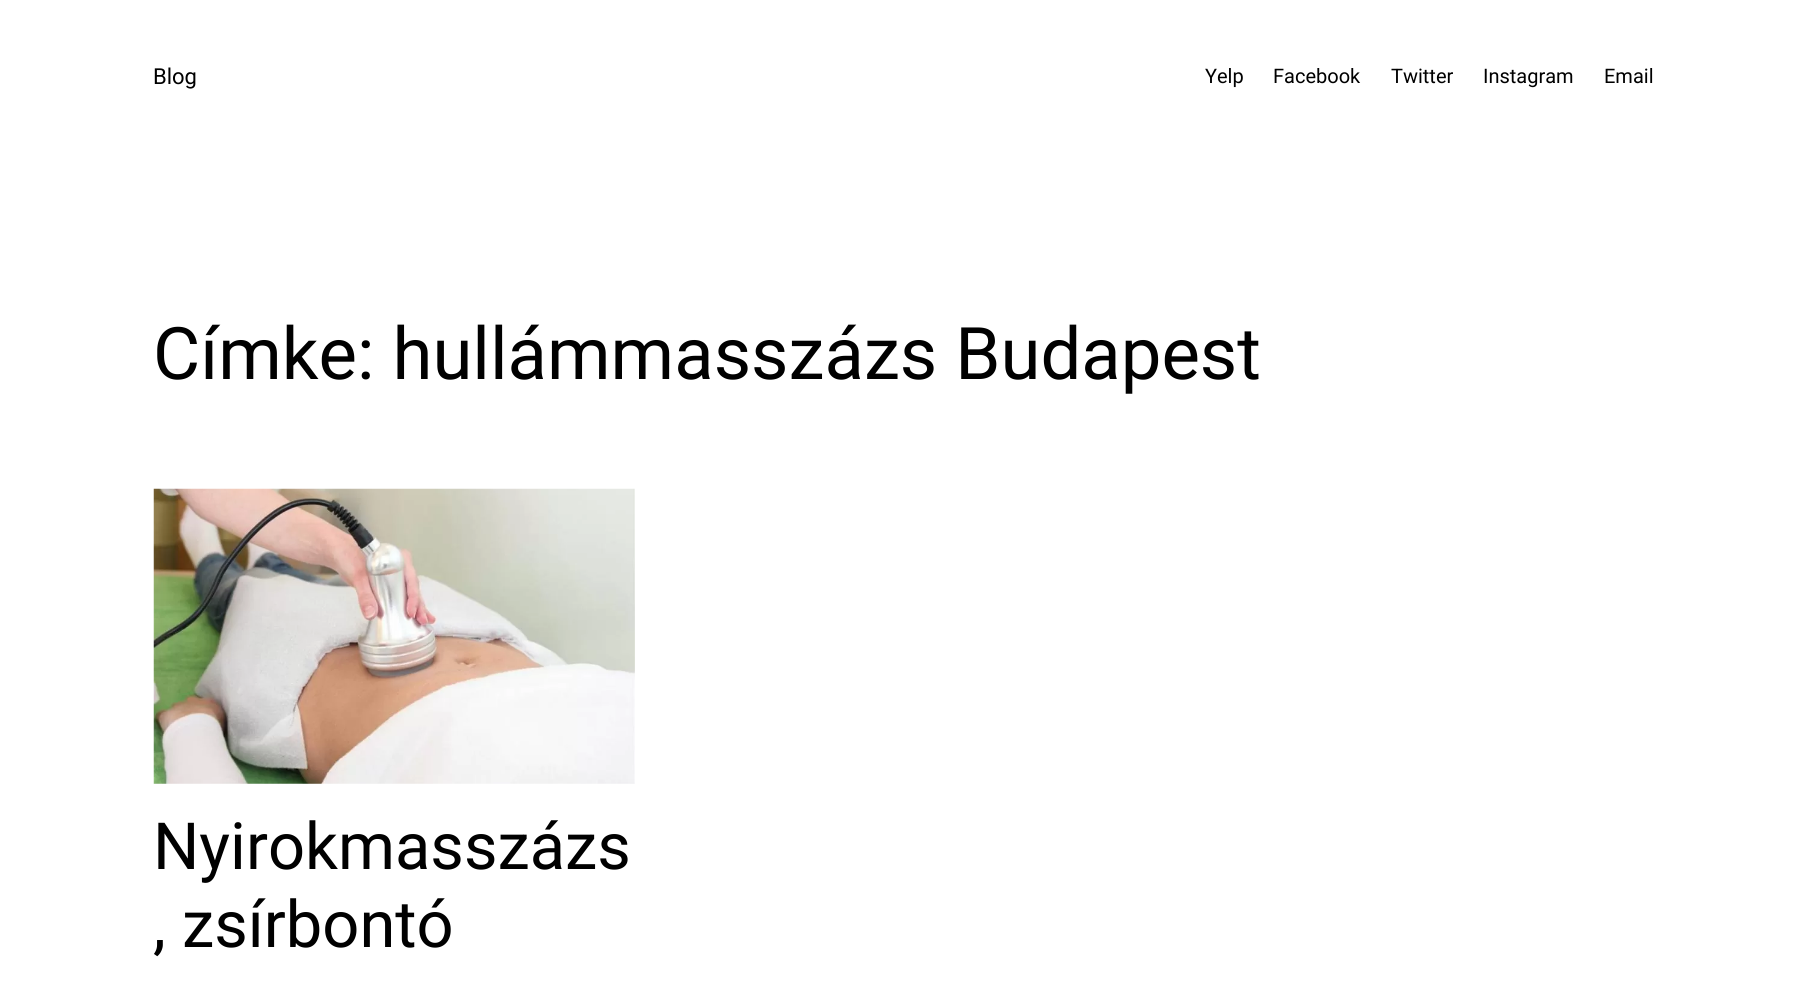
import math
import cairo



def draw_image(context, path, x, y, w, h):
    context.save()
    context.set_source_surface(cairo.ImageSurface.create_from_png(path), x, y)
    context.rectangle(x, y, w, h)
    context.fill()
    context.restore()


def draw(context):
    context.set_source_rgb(1, 1, 1)
    context.paint()
    draw_image(context, "images/1.png", 153, 488, 482, 296)
    context.select_font_face("Roboto")
    context.set_font_size(22)
    context.set_source_rgb(0, 0, 0)
    context.move_to(153, 84)
    context.show_text("Blog")
    context.set_font_size(20)
    context.move_to(1205, 83)
    context.show_text("Yelp")
    context.move_to(1273, 83)
    context.show_text("Facebook")
    context.move_to(1391, 83)
    context.show_text("Twitter")
    context.move_to(1483, 83)
    context.show_text("Instagram")
    context.move_to(1604, 83)
    context.show_text("Email")
    context.set_font_size(72.5)
    context.move_to(153, 379)
    context.show_text("Címke: hullámmasszázs Budapest")
    context.set_font_size(65)
    context.move_to(153, 869)
    context.show_text("Nyirokmasszázs")
    context.move_to(153, 947)
    context.show_text(", zsírbontó")


surface = cairo.ImageSurface(cairo.Format.RGB24, 1806, 982)
context = cairo.Context(surface)
options = cairo.FontOptions()
options.set_hint_metrics(cairo.HintMetrics.OFF)
options.set_hint_style(cairo.HintStyle.NONE)
context.set_font_options(options)
context.set_miter_limit(4)
draw(context)
surface.write_to_png("out.png")
